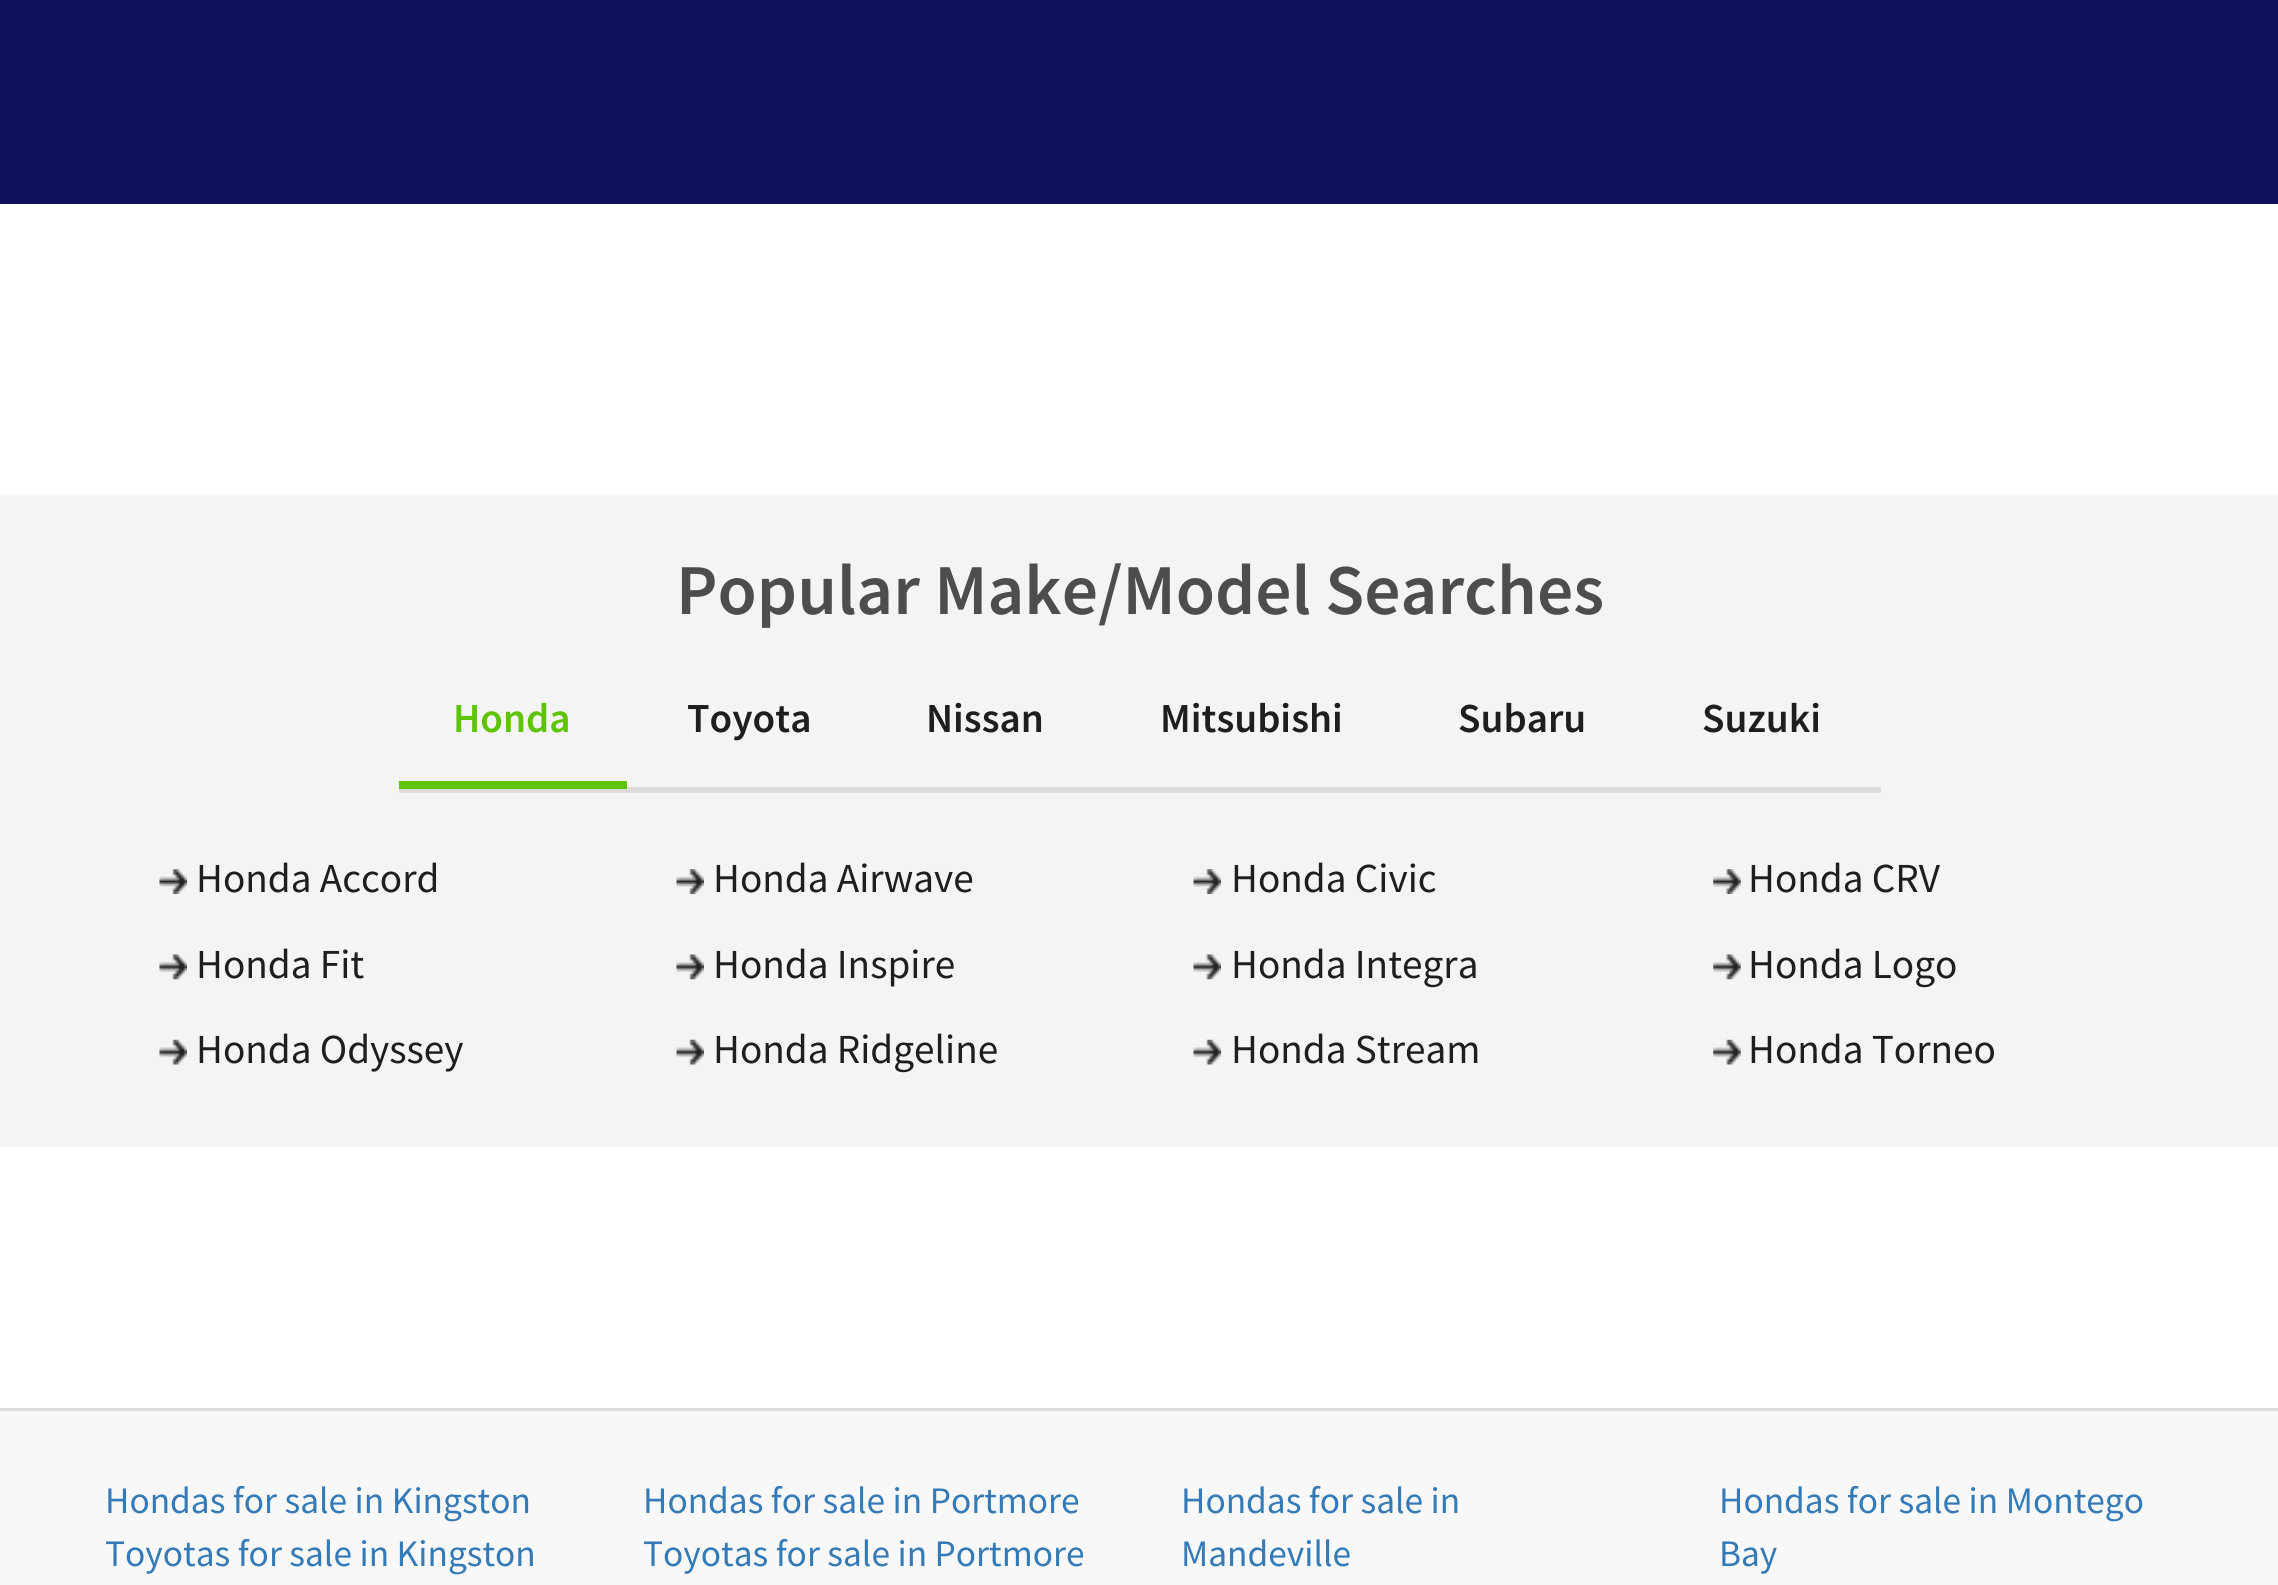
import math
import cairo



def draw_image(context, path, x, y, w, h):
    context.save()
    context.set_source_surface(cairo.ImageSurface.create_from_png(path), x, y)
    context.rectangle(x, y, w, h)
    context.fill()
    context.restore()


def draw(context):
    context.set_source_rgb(1, 1, 1)
    context.paint()
    context.set_source_rgb(15 / 255, 16 / 255, 90 / 255)
    context.rectangle(0, 0, 2278, 204)
    context.fill()
    context.set_source_rgb(244 / 255, 244 / 255, 244 / 255)
    context.rectangle(0, 495, 2278, 652)
    context.fill()
    context.set_source_rgb(222 / 255, 219 / 255, 219 / 255)
    context.rectangle(399, 787, 1482, 6)
    context.fill()
    context.set_source_rgb(93 / 255, 195 / 255, 2 / 255)
    context.rectangle(399, 781, 228, 8)
    context.fill()
    draw_image(context, "images/1.png", 159, 869, 28, 25)
    draw_image(context, "images/2.png", 676, 869, 28, 25)
    draw_image(context, "images/1.png", 1193, 869, 28, 25)
    draw_image(context, "images/3.png", 1713, 869, 28, 25)
    draw_image(context, "images/4.png", 159, 954, 28, 26)
    draw_image(context, "images/5.png", 676, 954, 28, 26)
    draw_image(context, "images/4.png", 1193, 954, 28, 26)
    draw_image(context, "images/6.png", 1713, 954, 28, 26)
    draw_image(context, "images/7.png", 159, 1039, 28, 26)
    draw_image(context, "images/8.png", 676, 1039, 28, 26)
    draw_image(context, "images/7.png", 1193, 1039, 28, 26)
    draw_image(context, "images/9.png", 1713, 1039, 28, 26)
    context.set_source_rgb(248 / 255, 248 / 255, 248 / 255)
    context.rectangle(0, 1411, 2278, 174)
    context.fill()
    context.set_source_rgb(221 / 255, 221 / 255, 221 / 255)
    context.rectangle(0, 1408, 2278, 3)
    context.fill()
    context.select_font_face("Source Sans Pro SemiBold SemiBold")
    context.set_font_size(71.5)
    context.set_source_rgb(77 / 255, 77 / 255, 77 / 255)
    context.move_to(676, 614)
    context.show_text("Popular Make/Model Searches")
    context.set_font_size(41.25)
    context.set_source_rgb(93 / 255, 195 / 255, 2 / 255)
    context.move_to(453, 732)
    context.show_text("Honda")
    context.set_source_rgb(30 / 255, 30 / 255, 30 / 255)
    context.move_to(687, 732)
    context.show_text("Toyota")
    context.move_to(926, 732)
    context.show_text("Nissan")
    context.move_to(1160, 732)
    context.show_text("Mitsubishi")
    context.move_to(1458, 732)
    context.show_text("Subaru")
    context.move_to(1702, 732)
    context.show_text("Suzuki")
    context.select_font_face("Source Sans Pro")
    context.move_to(196, 892)
    context.show_text("Honda Accord")
    context.move_to(713, 892)
    context.show_text("Honda Airwave")
    context.move_to(1231, 892)
    context.show_text("Honda Civic")
    context.move_to(1748, 892)
    context.show_text("Honda CRV")
    context.move_to(196, 978)
    context.show_text("Honda Fit")
    context.move_to(713, 978)
    context.show_text("Honda Inspire")
    context.move_to(1231, 978)
    context.show_text("Honda Integra")
    context.move_to(1748, 978)
    context.show_text("Honda Logo")
    context.move_to(196, 1063)
    context.show_text("Honda Odyssey")
    context.move_to(713, 1063)
    context.show_text("Honda Ridgeline")
    context.move_to(1231, 1063)
    context.show_text("Honda Stream")
    context.move_to(1748, 1063)
    context.show_text("Honda Torneo")
    context.set_font_size(37.4)
    context.set_source_rgb(51 / 255, 122 / 255, 183 / 255)
    context.move_to(105, 1513)
    context.show_text("Hondas for sale in Kingston")
    context.move_to(105, 1566)
    context.show_text("Toyotas for sale in Kingston")
    context.move_to(643, 1513)
    context.show_text("Hondas for sale in Portmore")
    context.move_to(643, 1566)
    context.show_text("Toyotas for sale in Portmore")
    context.move_to(1181, 1513)
    context.show_text("Hondas for sale in")
    context.move_to(1181, 1566)
    context.show_text("Mandeville")
    context.move_to(1719, 1513)
    context.show_text("Hondas for sale in Montego")
    context.move_to(1719, 1566)
    context.show_text("Bay")


surface = cairo.ImageSurface(cairo.Format.RGB24, 2278, 1585)
context = cairo.Context(surface)
options = cairo.FontOptions()
options.set_hint_metrics(cairo.HintMetrics.OFF)
options.set_hint_style(cairo.HintStyle.NONE)
context.set_font_options(options)
context.set_miter_limit(4)
draw(context)
surface.write_to_png("out.png")
